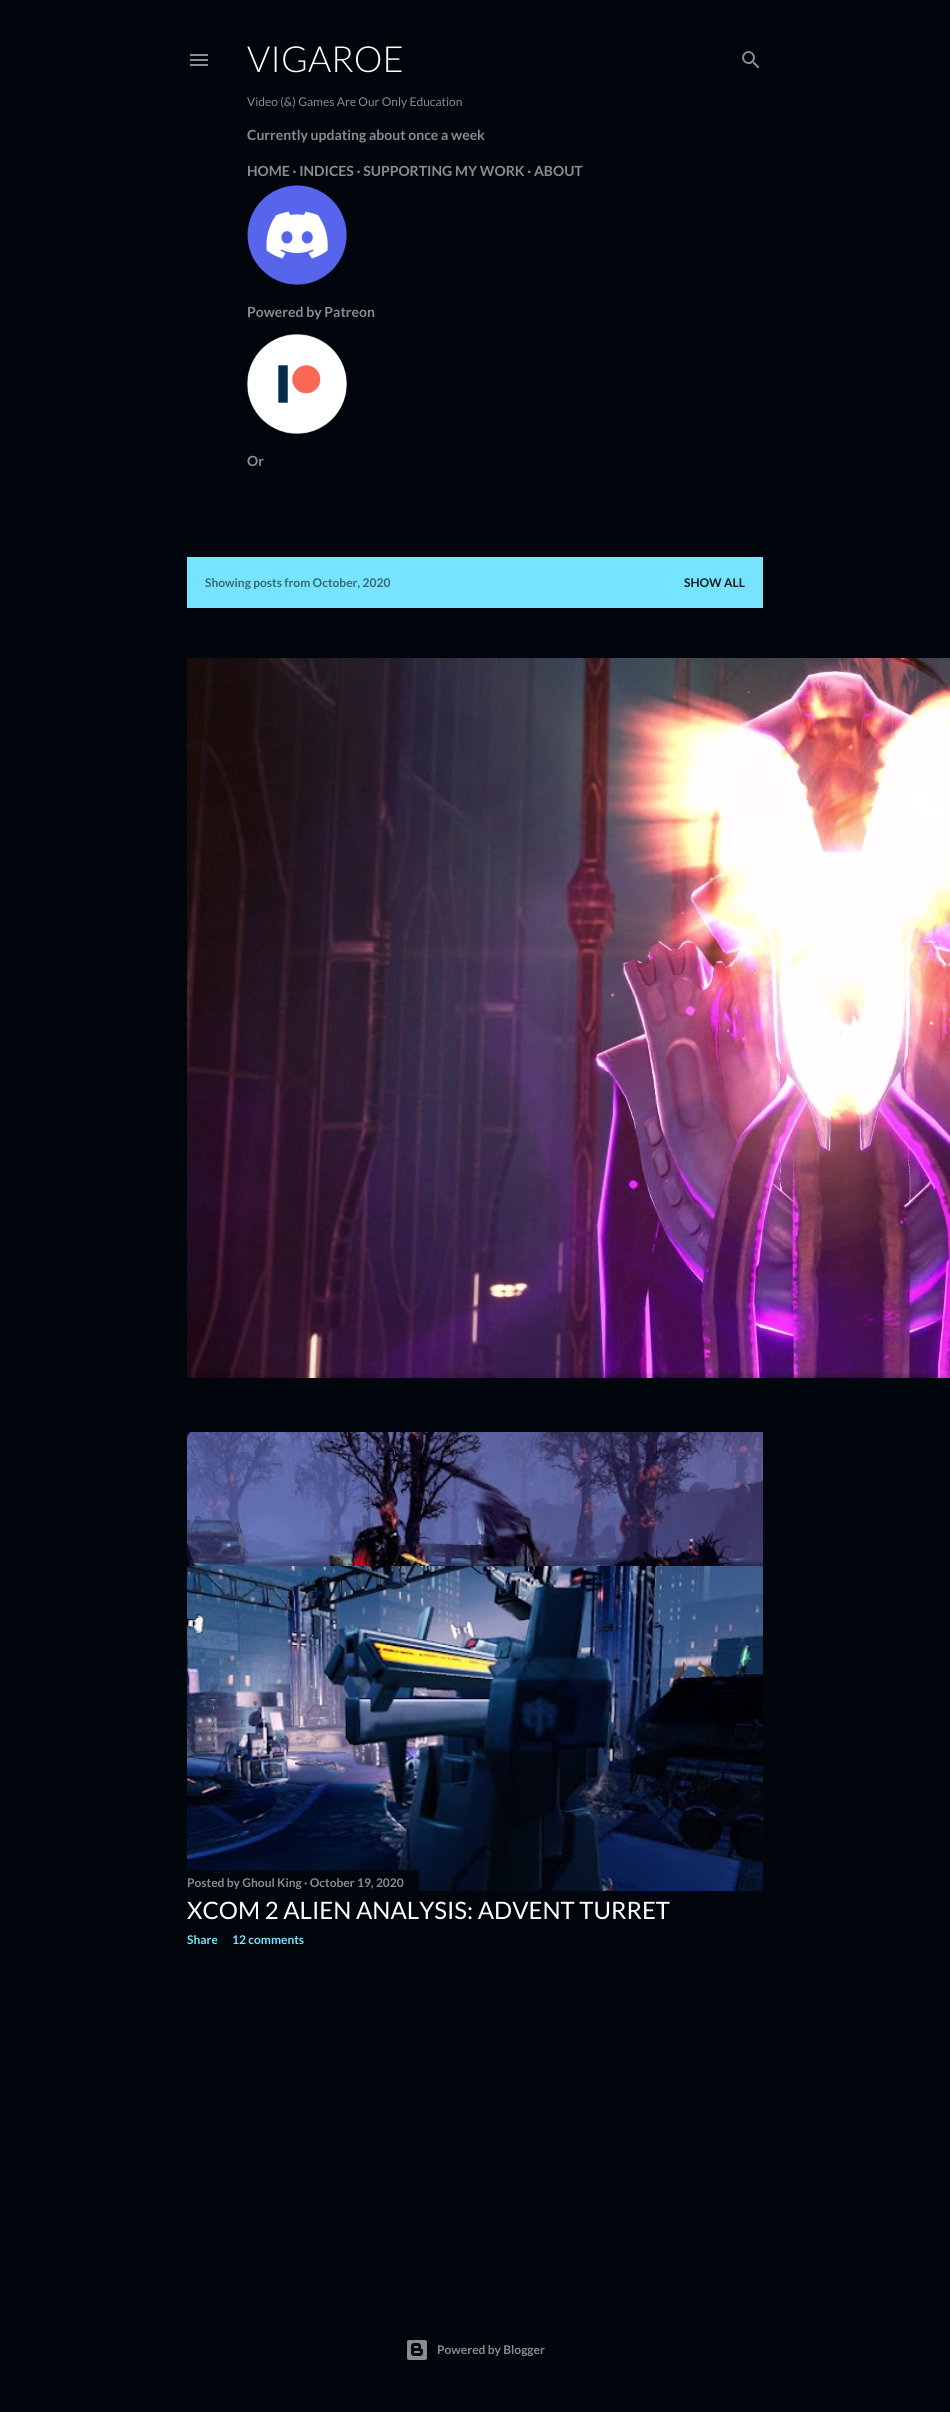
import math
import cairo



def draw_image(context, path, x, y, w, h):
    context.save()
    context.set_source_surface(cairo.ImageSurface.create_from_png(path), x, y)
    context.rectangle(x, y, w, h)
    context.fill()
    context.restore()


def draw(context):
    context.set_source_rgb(1 / 255, 5 / 255, 12 / 255)
    context.paint()
    draw_image(context, "images/1.png", 190, 54, 18, 12)
    draw_image(context, "images/2.png", 247, 185, 100, 100)
    draw_image(context, "images/3.png", 247, 334, 100, 100)
    draw_image(context, "images/4.png", 742, 51, 18, 18)
    context.set_source_rgb(119 / 255, 228 / 255, 1)
    context.rectangle(187, 557, 576, 51)
    context.fill()
    draw_image(context, "images/5.png", 187, 658, 763, 720)
    draw_image(context, "images/6.png", 187, 1432, 576, 134)
    draw_image(context, "images/7.png", 187, 1566, 576, 325)
    context.set_source_rgb(1 / 255, 5 / 255, 12 / 255)
    context.rectangle(187, 1870, 232, 21)
    context.fill()
    draw_image(context, "images/8.png", 407, 2340, 20, 20)
    context.select_font_face("Lato Light")
    context.set_font_size(36)
    context.set_source_rgb(1, 1, 1)
    context.move_to(247, 72)
    context.show_text("VIGAROE")
    context.select_font_face("Lato")
    context.set_font_size(12)
    context.set_source_rgb(138 / 255, 140 / 255, 143 / 255)
    context.move_to(247, 106)
    context.show_text("Video (&) Games Are Our Only Education")
    context.select_font_face("Lato", cairo.FontSlant.NORMAL, cairo.FontWeight.BOLD)
    context.set_font_size(14)
    context.move_to(247, 140)
    context.show_text("Currently updating about once a week")
    context.move_to(247, 176)
    context.show_text("HOME · INDICES · SUPPORTING MY WORK · ABOUT")
    context.move_to(247, 317)
    context.show_text("Powered by Patreon")
    context.move_to(247, 466)
    context.show_text("Or")
    context.set_font_size(12)
    context.set_source_rgb(55 / 255, 105 / 255, 117 / 255)
    context.move_to(205, 587)
    context.show_text("Showing posts from October, 2020")
    context.set_source_rgb(15 / 255, 30 / 255, 33 / 255)
    context.move_to(684, 587)
    context.show_text("SHOW ALL")
    context.set_source_rgb(138 / 255, 140 / 255, 143 / 255)
    context.move_to(187, 1887)
    context.show_text("Posted by Ghoul King · October 19, 2020")
    context.select_font_face("Lato")
    context.set_font_size(24)
    context.set_source_rgb(1, 1, 1)
    context.move_to(187, 1919)
    context.show_text("XCOM 2 ALIEN ANALYSIS: ADVENT TURRET")
    context.select_font_face("Lato", cairo.FontSlant.NORMAL, cairo.FontWeight.BOLD)
    context.set_font_size(12)
    context.set_source_rgb(119 / 255, 228 / 255, 1)
    context.move_to(187, 1944)
    context.show_text("Share")
    context.move_to(232, 1944)
    context.show_text("12 comments")
    context.set_source_rgb(138 / 255, 140 / 255, 143 / 255)
    context.move_to(437, 2354)
    context.show_text("Powered by Blogger")


surface = cairo.ImageSurface(cairo.Format.RGB24, 950, 2412)
context = cairo.Context(surface)
options = cairo.FontOptions()
options.set_hint_metrics(cairo.HintMetrics.OFF)
options.set_hint_style(cairo.HintStyle.NONE)
context.set_font_options(options)
context.set_miter_limit(4)
draw(context)
surface.write_to_png("out.png")
